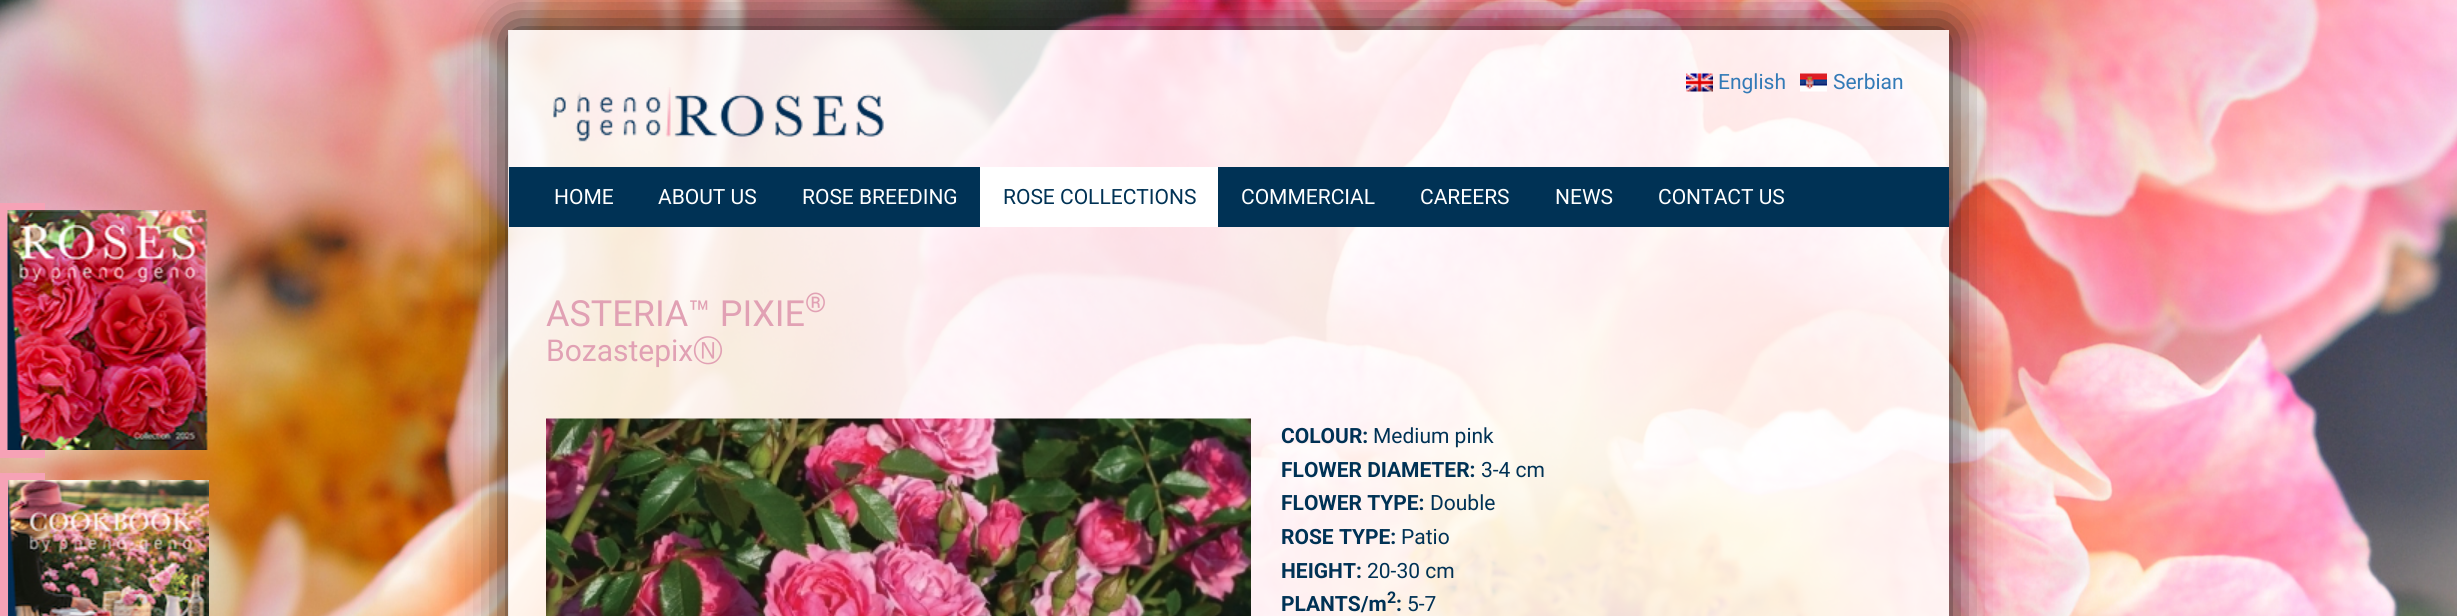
import math
import cairo



def rounded_rect(context, x, y, w, h, r):
    context.new_sub_path()
    for i, (u, v) in enumerate([(x + w - r, y + h - r), (x + r, y + h - r), (x + r, y + r), (x + w - r, y + r)]):
        context.arc(u, v, r, i * math.pi / 2, (i + 1) * math.pi / 2)
    context.close_path()


def draw_shadow(context, x, y, w, h, r, blur, alpha):
    context.push_group_with_content(cairo.Content.ALPHA)
    context.set_operator(cairo.Operator.SOURCE)
    for i in range(15, -16, -2):
        e = blur * i / 6
        if min(w, h) + 2 * e > 0:
            context.set_source_rgba(0, 0, 0, alpha * math.erfc((i - 1) / 8.5) / 2)
            rounded_rect(context, x - e, y - e, w + 2 * e, h + 2 * e, max(0, min(r + e + blur * .6, min(w, h) / 2 + e)))
            context.fill()
    context.mask(context.pop_group())


def draw_image(context, path, x, y, w, h):
    context.save()
    context.set_source_surface(cairo.ImageSurface.create_from_png(path), x, y)
    context.rectangle(x, y, w, h)
    context.fill()
    context.restore()


def draw(context):
    context.set_source_rgb(1, 1, 1)
    context.paint()
    draw_image(context, "images/1.png", 0, 0, 2457, 616)
    context.set_source_rgb(246 / 255, 162 / 255, 182 / 255)
    context.rectangle(0, 203, 45, 255)
    context.fill()
    draw_image(context, "images/2.png", 7, 210, 201, 240)
    context.save()
    context.set_fill_rule(cairo.FillRule.EVEN_ODD)
    context.new_path()
    context.move_to(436, 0)
    context.line_to(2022, 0)
    context.line_to(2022, 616)
    context.line_to(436, 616)
    context.close_path()
    context.move_to(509, 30)
    context.line_to(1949, 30)
    context.line_to(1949, 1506)
    context.line_to(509, 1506)
    context.close_path()
    context.clip()
    context.set_source_rgb(17 / 255, 17 / 255, 17 / 255)
    draw_shadow(context, 509, 30, 1440, 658, 0, 24, 1)
    context.restore()
    context.set_source_rgba(1, 1, 1, 0.85)
    context.rectangle(508, 30, 1441, 586)
    context.fill()
    draw_image(context, "images/3.png", 1686, 73, 27, 19)
    draw_image(context, "images/4.png", 1800, 73, 27, 19)
    draw_image(context, "images/5.png", 553, 87, 331, 55)
    context.set_source_rgb(0, 50 / 255, 85 / 255)
    context.rectangle(509, 167, 1440, 60)
    context.fill()
    context.set_source_rgb(1, 1, 1)
    context.rectangle(980, 167, 238, 60)
    context.fill()
    draw_image(context, "images/6.png", 546, 418, 705, 198)
    context.set_source_rgb(246 / 255, 162 / 255, 182 / 255)
    context.rectangle(0, 473, 45, 143)
    context.fill()
    draw_image(context, "images/7.png", 8, 480, 201, 136)
    context.select_font_face("Roboto")
    context.set_font_size(21)
    context.set_source_rgb(51 / 255, 122 / 255, 183 / 255)
    context.move_to(1718, 89)
    context.show_text("English")
    context.move_to(1833, 89)
    context.show_text("Serbian")
    context.set_source_rgb(1, 1, 1)
    context.move_to(554, 204)
    context.show_text("HOME")
    context.move_to(658, 204)
    context.show_text("ABOUT US")
    context.move_to(802, 204)
    context.show_text("ROSE BREEDING")
    context.set_source_rgb(0, 50 / 255, 85 / 255)
    context.move_to(1003, 204)
    context.show_text("ROSE COLLECTIONS")
    context.set_source_rgb(1, 1, 1)
    context.move_to(1241, 204)
    context.show_text("COMMERCIAL")
    context.move_to(1420, 204)
    context.show_text("CAREERS")
    context.move_to(1555, 204)
    context.show_text("NEWS")
    context.move_to(1658, 204)
    context.show_text("CONTACT US")
    context.set_font_size(36)
    context.set_source_rgb(225 / 255, 161 / 255, 180 / 255)
    context.move_to(546, 326)
    context.show_text("ASTERIA™ PIXIE")
    context.set_font_size(27)
    context.move_to(805, 312)
    context.show_text("®")
    context.set_font_size(30)
    context.move_to(546, 361)
    context.show_text("Bozastepix")
    context.select_font_face("WenQuanYi Zen Hei Medium")
    context.move_to(693, 361)
    context.show_text("Ⓝ")
    context.select_font_face("Roboto", cairo.FontSlant.NORMAL, cairo.FontWeight.BOLD)
    context.set_font_size(21)
    context.set_source_rgb(0, 50 / 255, 85 / 255)
    context.move_to(1281, 443)
    context.show_text("COLOUR:")
    context.select_font_face("Roboto")
    context.move_to(1373, 443)
    context.show_text("Medium pink")
    context.select_font_face("Roboto", cairo.FontSlant.NORMAL, cairo.FontWeight.BOLD)
    context.move_to(1281, 477)
    context.show_text("FLOWER DIAMETER:")
    context.select_font_face("Roboto")
    context.move_to(1481, 477)
    context.show_text("3-4 cm")
    context.select_font_face("Roboto", cairo.FontSlant.NORMAL, cairo.FontWeight.BOLD)
    context.move_to(1281, 510)
    context.show_text("FLOWER TYPE:")
    context.select_font_face("Roboto")
    context.move_to(1430, 510)
    context.show_text("Double")
    context.select_font_face("Roboto", cairo.FontSlant.NORMAL, cairo.FontWeight.BOLD)
    context.move_to(1281, 544)
    context.show_text("ROSE TYPE:")
    context.select_font_face("Roboto")
    context.move_to(1401, 544)
    context.show_text("Patio")
    context.select_font_face("Roboto", cairo.FontSlant.NORMAL, cairo.FontWeight.BOLD)
    context.move_to(1281, 578)
    context.show_text("HEIGHT:")
    context.select_font_face("Roboto")
    context.move_to(1367, 578)
    context.show_text("20-30 cm")
    context.select_font_face("Roboto", cairo.FontSlant.NORMAL, cairo.FontWeight.BOLD)
    context.move_to(1281, 611)
    context.show_text("PLANTS/m")
    context.set_font_size(16)
    context.move_to(1387, 603)
    context.show_text("2")
    context.set_font_size(21)
    context.move_to(1396, 611)
    context.show_text(":")
    context.select_font_face("Roboto")
    context.move_to(1407, 611)
    context.show_text("5-7")


surface = cairo.ImageSurface(cairo.Format.RGB24, 2457, 616)
context = cairo.Context(surface)
options = cairo.FontOptions()
options.set_hint_metrics(cairo.HintMetrics.OFF)
options.set_hint_style(cairo.HintStyle.NONE)
context.set_font_options(options)
context.set_miter_limit(4)
draw(context)
surface.write_to_png("out.png")
